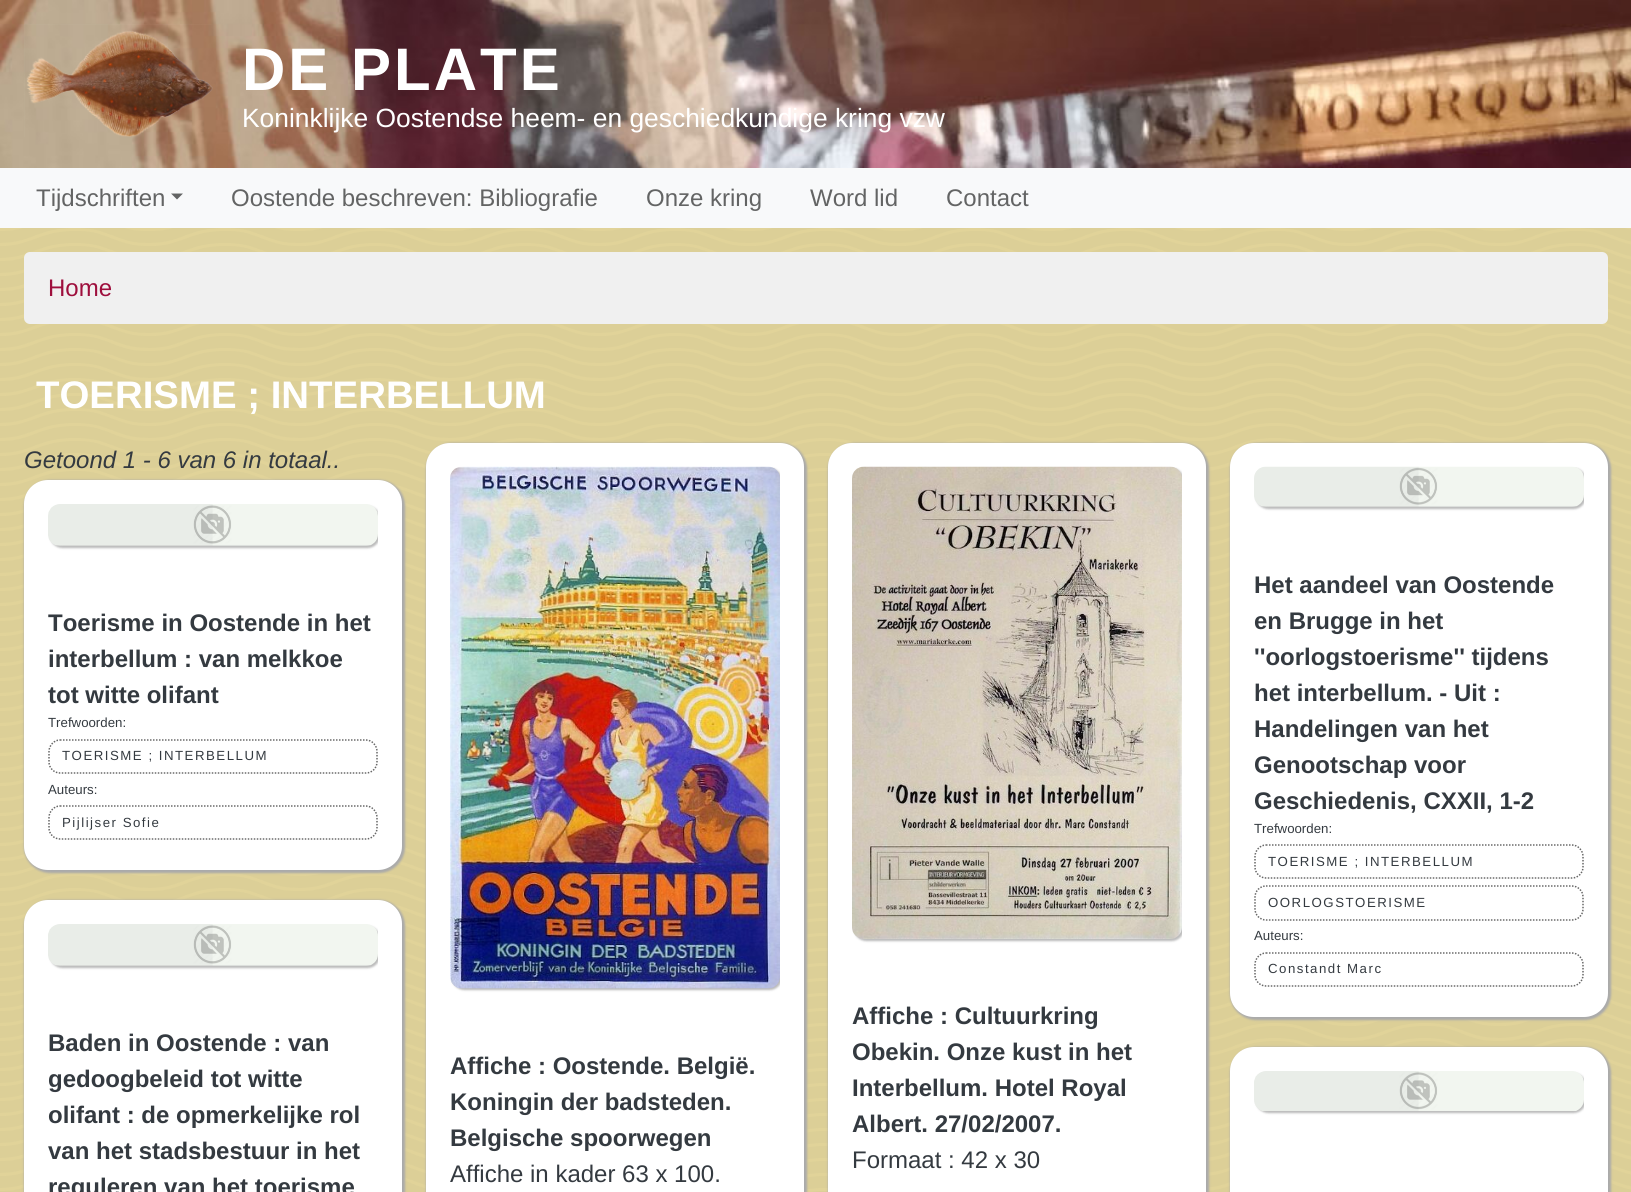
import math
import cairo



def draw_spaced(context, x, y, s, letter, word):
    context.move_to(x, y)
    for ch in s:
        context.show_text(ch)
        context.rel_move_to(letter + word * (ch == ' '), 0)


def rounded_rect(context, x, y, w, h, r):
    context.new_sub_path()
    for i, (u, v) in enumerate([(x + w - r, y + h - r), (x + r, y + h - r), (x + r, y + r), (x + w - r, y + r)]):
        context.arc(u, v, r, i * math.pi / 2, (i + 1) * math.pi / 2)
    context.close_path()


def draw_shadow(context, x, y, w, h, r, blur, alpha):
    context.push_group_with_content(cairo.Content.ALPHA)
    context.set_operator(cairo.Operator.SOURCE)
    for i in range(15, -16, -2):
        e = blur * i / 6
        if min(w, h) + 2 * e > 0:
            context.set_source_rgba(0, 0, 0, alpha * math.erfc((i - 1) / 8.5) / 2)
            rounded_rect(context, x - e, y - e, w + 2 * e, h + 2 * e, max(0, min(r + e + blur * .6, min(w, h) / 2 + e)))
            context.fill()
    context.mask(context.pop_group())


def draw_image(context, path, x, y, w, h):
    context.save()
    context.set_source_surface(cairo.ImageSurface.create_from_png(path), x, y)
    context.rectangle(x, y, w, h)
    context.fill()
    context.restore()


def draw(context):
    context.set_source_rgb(220 / 255, 207 / 255, 151 / 255)
    context.paint()
    draw_image(context, "images/1.png", 0, 228, 1631, 964)
    draw_image(context, "images/2.png", 0, 0, 1631, 168)
    draw_image(context, "images/3.png", 24, 24, 189, 113)
    context.set_source_rgb(248 / 255, 249 / 255, 250 / 255)
    context.rectangle(0, 168, 1631, 60)
    context.fill()
    context.set_source_rgb(99 / 255, 100 / 255, 100 / 255)
    context.new_path()
    context.move_to(171, 193.5)
    context.line_to(183, 193.5)
    context.line_to(177, 199.5)
    context.close_path()
    context.fill()
    context.set_source_rgb(240 / 255, 240 / 255, 240 / 255)
    rounded_rect(context, 24, 252, 1584, 72, 6)
    context.fill()
    context.set_source_rgb(170 / 255, 170 / 255, 170 / 255)
    draw_shadow(context, 24, 480, 381, 393, 26, 1, 1)
    context.set_source_rgb(1, 1, 1)
    rounded_rect(context, 24, 480, 378, 390, 24)
    context.fill()
    context.save()
    context.rectangle(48, 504, 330, 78)
    context.clip()
    context.set_source_rgb(187 / 255, 187 / 255, 187 / 255)
    draw_shadow(context, 50, 506, 330, 42, 12, 1, 1)
    context.restore()
    draw_image(context, "images/4.png", 48, 504, 330, 42)
    context.new_path()
    context.move_to(60, 740)
    context.line_to(366, 740)
    context.curve_to(372, 740, 377, 745.5, 377, 751.5)
    context.line_to(377, 762)
    context.curve_to(377, 768, 372, 773, 366, 773)
    context.line_to(60, 773)
    context.curve_to(54, 773, 49, 768, 49, 762)
    context.line_to(49, 751.5)
    context.curve_to(49, 745.5, 54, 740, 60, 740)
    context.close_path()
    context.set_source_rgb(102 / 255, 102 / 255, 102 / 255)
    context.set_line_width(1.5)
    context.set_dash([1.5, 1.5])
    context.stroke()
    context.new_path()
    context.move_to(60, 806)
    context.line_to(366, 806)
    context.curve_to(372, 806, 377, 811.5, 377, 817.5)
    context.line_to(377, 828)
    context.curve_to(377, 834, 372, 839, 366, 839)
    context.line_to(60, 839)
    context.curve_to(54, 839, 49, 834, 49, 828)
    context.line_to(49, 817.5)
    context.curve_to(49, 811.5, 54, 806, 60, 806)
    context.close_path()
    context.stroke()
    context.set_source_rgb(170 / 255, 170 / 255, 170 / 255)
    draw_shadow(context, 1230, 443, 381, 577, 26, 1, 1)
    context.set_source_rgb(1, 1, 1)
    rounded_rect(context, 1230, 443, 378, 574, 24)
    context.fill()
    context.save()
    context.rectangle(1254, 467, 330, 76)
    context.clip()
    context.set_source_rgb(187 / 255, 187 / 255, 187 / 255)
    draw_shadow(context, 1256, 468, 330, 41, 12, 1, 1)
    context.restore()
    draw_image(context, "images/5.png", 1254, 466, 330, 41)
    context.new_path()
    context.move_to(1266, 845)
    context.line_to(1572, 845)
    context.curve_to(1578, 845, 1583, 850.5, 1583, 856.5)
    context.line_to(1583, 867)
    context.curve_to(1583, 873, 1578, 878, 1572, 878)
    context.line_to(1266, 878)
    context.curve_to(1260, 878, 1255, 873, 1255, 867)
    context.line_to(1255, 856.5)
    context.curve_to(1255, 850.5, 1260, 845, 1266, 845)
    context.close_path()
    context.set_source_rgb(102 / 255, 102 / 255, 102 / 255)
    context.stroke()
    context.new_path()
    context.move_to(1266, 886)
    context.line_to(1572, 886)
    context.curve_to(1578, 886, 1583, 891, 1583, 897)
    context.line_to(1583, 909)
    context.curve_to(1583, 915, 1578, 920, 1572, 920)
    context.line_to(1266, 920)
    context.curve_to(1260, 920, 1255, 915, 1255, 909)
    context.line_to(1255, 897)
    context.curve_to(1255, 891, 1260, 886, 1266, 886)
    context.close_path()
    context.stroke()
    context.new_path()
    context.move_to(1266, 953)
    context.line_to(1572, 953)
    context.curve_to(1578, 953, 1583, 958.5, 1583, 964.5)
    context.line_to(1583, 975)
    context.curve_to(1583, 981, 1578, 986, 1572, 986)
    context.line_to(1266, 986)
    context.curve_to(1260, 986, 1255, 981, 1255, 975)
    context.line_to(1255, 964.5)
    context.curve_to(1255, 958.5, 1260, 953, 1266, 953)
    context.close_path()
    context.stroke()
    context.set_source_rgb(170 / 255, 170 / 255, 170 / 255)
    draw_shadow(context, 24, 900, 381, 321, 26, 1, 1)
    context.set_source_rgb(1, 1, 1)
    rounded_rect(context, 24, 900, 378, 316, 24)
    context.fill()
    context.save()
    context.rectangle(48, 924, 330, 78)
    context.clip()
    context.set_source_rgb(187 / 255, 187 / 255, 187 / 255)
    draw_shadow(context, 50, 926, 330, 42, 12, 1, 1)
    context.restore()
    draw_image(context, "images/6.png", 48, 924, 330, 42)
    context.set_source_rgb(170 / 255, 170 / 255, 170 / 255)
    draw_shadow(context, 426, 443, 381, 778, 26, 1, 1)
    context.set_source_rgb(1, 1, 1)
    rounded_rect(context, 426, 443, 378, 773, 24)
    context.fill()
    context.save()
    context.rectangle(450, 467, 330, 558)
    context.clip()
    context.set_source_rgb(187 / 255, 187 / 255, 187 / 255)
    draw_shadow(context, 452, 468, 330, 522, 12, 1, 1)
    context.restore()
    draw_image(context, "images/7.png", 450, 466, 330, 523)
    context.set_source_rgb(170 / 255, 170 / 255, 170 / 255)
    draw_shadow(context, 828, 443, 381, 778, 26, 1, 1)
    context.set_source_rgb(1, 1, 1)
    rounded_rect(context, 828, 443, 378, 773, 24)
    context.fill()
    context.save()
    context.rectangle(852, 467, 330, 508)
    context.clip()
    context.set_source_rgb(187 / 255, 187 / 255, 187 / 255)
    draw_shadow(context, 854, 468, 330, 473, 12, 1, 1)
    context.restore()
    draw_image(context, "images/8.png", 852, 466, 330, 473)
    context.set_source_rgb(170 / 255, 170 / 255, 170 / 255)
    draw_shadow(context, 1230, 1047, 381, 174, 26, 1, 1)
    context.set_source_rgb(1, 1, 1)
    rounded_rect(context, 1230, 1047, 378, 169, 24)
    context.fill()
    context.save()
    context.rectangle(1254, 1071, 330, 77)
    context.clip()
    context.set_source_rgb(187 / 255, 187 / 255, 187 / 255)
    draw_shadow(context, 1256, 1073, 330, 40, 12, 1, 1)
    context.restore()
    draw_image(context, "images/9.png", 1254, 1071, 330, 40)
    context.select_font_face("Liberation Sans", cairo.FontSlant.NORMAL, cairo.FontWeight.BOLD)
    context.set_font_size(60)
    draw_spaced(context, 242, 90, "DE PLATE", 3, 0)
    context.select_font_face("Liberation Sans")
    context.set_font_size(26.4)
    context.move_to(242, 127)
    context.show_text("Koninklijke Oostendse heem- en geschiedkundige kring vzw")
    context.set_font_size(24)
    context.set_source_rgb(99 / 255, 100 / 255, 100 / 255)
    context.move_to(36, 206)
    context.show_text("Tijdschriften")
    context.move_to(231, 206)
    context.show_text("Oostende beschreven: Bibliografie")
    context.move_to(646, 206)
    context.show_text("Onze kring")
    context.move_to(810, 206)
    context.show_text("Word lid")
    context.move_to(946, 206)
    context.show_text("Contact")
    context.set_source_rgb(158 / 255, 15 / 255, 61 / 255)
    context.move_to(48, 296)
    context.show_text("Home")
    context.select_font_face("Liberation Sans", cairo.FontSlant.NORMAL, cairo.FontWeight.BOLD)
    context.set_font_size(38.4)
    context.set_source_rgb(1, 1, 1)
    context.move_to(36, 408)
    context.show_text("TOERISME ; INTERBELLUM")
    context.select_font_face("Liberation Sans", cairo.FontSlant.ITALIC)
    context.set_font_size(24)
    context.set_source_rgb(52 / 255, 58 / 255, 64 / 255)
    context.move_to(24, 468)
    context.show_text("Getoond 1 - 6 van 6 in totaal..")
    context.select_font_face("Liberation Sans", cairo.FontSlant.NORMAL, cairo.FontWeight.BOLD)
    context.move_to(48, 631)
    context.show_text("Toerisme in Oostende in het")
    context.move_to(48, 667)
    context.show_text("interbellum : van melkkoe")
    context.move_to(48, 703)
    context.show_text("tot witte olifant")
    context.select_font_face("Liberation Sans")
    context.set_font_size(13.25)
    context.move_to(48, 727)
    context.show_text("Trefwoorden:")
    draw_spaced(context, 62, 760, "TOERISME ; INTERBELLUM", 1.5, 0)
    context.move_to(48, 794)
    context.show_text("Auteurs:")
    draw_spaced(context, 62, 827, "Pijlijser Sofie", 1.5, 0)
    context.select_font_face("Liberation Sans", cairo.FontSlant.NORMAL, cairo.FontWeight.BOLD)
    context.set_font_size(24)
    context.move_to(1254, 593)
    context.show_text("Het aandeel van Oostende")
    context.move_to(1254, 629)
    context.show_text("en Brugge in het")
    context.move_to(1254, 665)
    context.show_text("''oorlogstoerisme'' tijdens")
    context.move_to(1254, 701)
    context.show_text("het interbellum. - Uit :")
    context.move_to(1254, 737)
    context.show_text("Handelingen van het")
    context.move_to(1254, 773)
    context.show_text("Genootschap voor")
    context.move_to(1254, 809)
    context.show_text("Geschiedenis, CXXII, 1-2")
    context.select_font_face("Liberation Sans")
    context.set_font_size(13.25)
    context.move_to(1254, 833)
    context.show_text("Trefwoorden:")
    draw_spaced(context, 1268, 866, "TOERISME ; INTERBELLUM", 1.5, 0)
    draw_spaced(context, 1268, 907, "OORLOGSTOERISME", 1.5, 0)
    context.move_to(1254, 940)
    context.show_text("Auteurs:")
    draw_spaced(context, 1268, 973, "Constandt Marc", 1.5, 0)
    context.select_font_face("Liberation Sans", cairo.FontSlant.NORMAL, cairo.FontWeight.BOLD)
    context.set_font_size(24)
    context.move_to(48, 1051)
    context.show_text("Baden in Oostende : van")
    context.move_to(48, 1087)
    context.show_text("gedoogbeleid tot witte")
    context.move_to(48, 1123)
    context.show_text("olifant : de opmerkelijke rol")
    context.move_to(48, 1159)
    context.show_text("van het stadsbestuur in het")
    context.move_to(48, 1195)
    context.show_text("reguleren van het toerisme")
    context.move_to(450, 1074)
    context.show_text("Affiche : Oostende. België.")
    context.move_to(450, 1110)
    context.show_text("Koningin der badsteden.")
    context.move_to(450, 1146)
    context.show_text("Belgische spoorwegen")
    context.select_font_face("Liberation Sans")
    context.move_to(450, 1182)
    context.show_text("Affiche in kader 63 x 100.")
    context.select_font_face("Liberation Sans", cairo.FontSlant.NORMAL, cairo.FontWeight.BOLD)
    context.move_to(852, 1024)
    context.show_text("Affiche : Cultuurkring")
    context.move_to(852, 1060)
    context.show_text("Obekin. Onze kust in het")
    context.move_to(852, 1096)
    context.show_text("Interbellum. Hotel Royal")
    context.move_to(852, 1132)
    context.show_text("Albert. 27/02/2007.")
    context.select_font_face("Liberation Sans")
    context.move_to(852, 1168)
    context.show_text("Formaat : 42 x 30")


surface = cairo.ImageSurface(cairo.Format.RGB24, 1631, 1192)
context = cairo.Context(surface)
options = cairo.FontOptions()
options.set_hint_metrics(cairo.HintMetrics.OFF)
options.set_hint_style(cairo.HintStyle.NONE)
context.set_font_options(options)
context.set_miter_limit(4)
draw(context)
surface.write_to_png("out.png")
